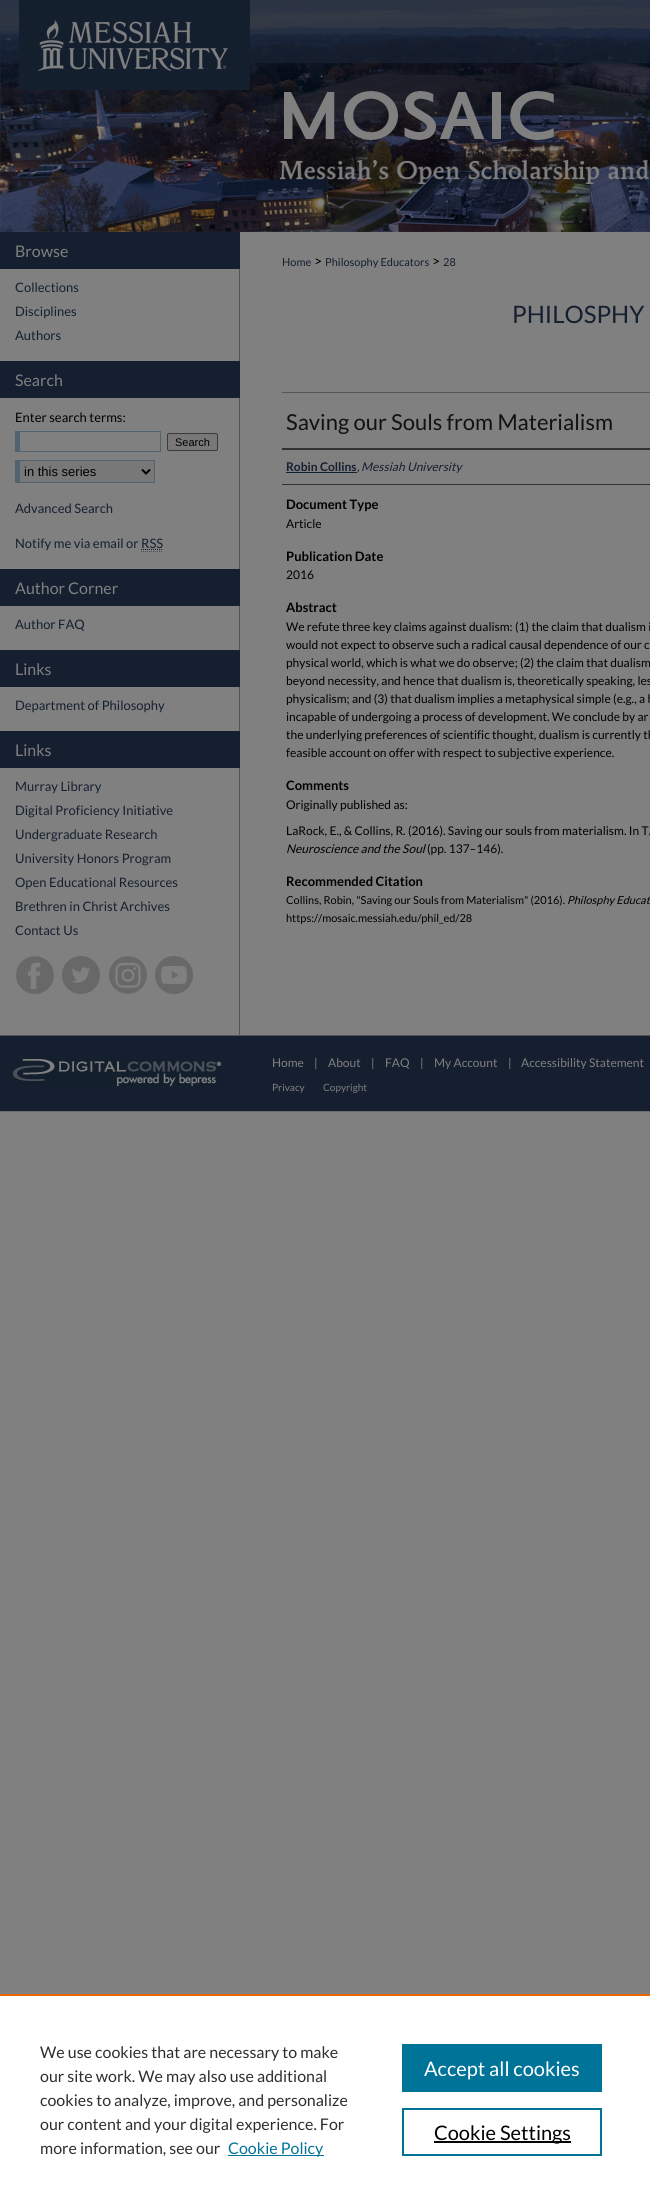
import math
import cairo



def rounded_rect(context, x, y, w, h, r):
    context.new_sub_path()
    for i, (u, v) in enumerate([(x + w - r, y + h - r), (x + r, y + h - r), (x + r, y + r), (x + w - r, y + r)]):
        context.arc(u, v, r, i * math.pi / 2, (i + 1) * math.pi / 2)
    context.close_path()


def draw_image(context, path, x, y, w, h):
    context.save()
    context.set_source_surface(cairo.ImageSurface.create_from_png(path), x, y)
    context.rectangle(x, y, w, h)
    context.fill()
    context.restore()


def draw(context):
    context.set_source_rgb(128 / 255, 128 / 255, 128 / 255)
    context.paint()
    draw_image(context, "images/1.png", 0, 0, 650, 232)
    context.set_source_rgb(84 / 255, 84 / 255, 84 / 255)
    context.rectangle(239, 269, 1, 766)
    context.fill()
    context.set_source_rgb(21 / 255, 31 / 255, 47 / 255)
    context.rectangle(0, 232, 240, 37)
    context.fill()
    context.rectangle(0, 361, 240, 37)
    context.fill()
    context.set_source_rgb(80 / 255, 99 / 255, 110 / 255)
    context.rectangle(15, 431, 146, 1)
    context.fill()
    context.rectangle(160, 431, 1, 21)
    context.fill()
    context.rectangle(15, 451, 146, 1)
    context.fill()
    context.rectangle(15, 431, 5, 21)
    context.fill()
    context.set_source_rgb(120 / 255, 120 / 255, 120 / 255)
    rounded_rect(context, 167.5, 433.5, 50, 17, 1.5)
    context.fill_preserve()
    context.set_source_rgb(59 / 255, 59 / 255, 59 / 255)
    context.set_line_width(1)
    context.stroke()
    context.set_source_rgb(120 / 255, 120 / 255, 120 / 255)
    context.rectangle(20, 461, 134, 21)
    context.fill()
    context.set_source_rgb(80 / 255, 99 / 255, 110 / 255)
    context.rectangle(15, 460, 140, 1)
    context.fill()
    context.rectangle(154, 460, 1, 23)
    context.fill()
    context.rectangle(15, 482, 140, 1)
    context.fill()
    context.rectangle(15, 460, 5, 23)
    context.fill()
    context.new_path()
    context.move_to(142, 469.5)
    context.line_to(146, 473.5)
    context.line_to(150, 469.5)
    context.set_source_rgb(0, 0, 0)
    context.set_line_width(2)
    context.stroke()
    context.new_path()
    context.move_to(141, 549.5)
    context.line_to(163, 549.5)
    context.set_source_rgb(20 / 255, 31 / 255, 47 / 255)
    context.set_line_width(1)
    context.set_dash([1, 1])
    context.stroke()
    context.new_path()
    context.move_to(141, 551.5)
    context.line_to(163, 551.5)
    context.set_source_rgb(77 / 255, 77 / 255, 77 / 255)
    context.stroke()
    context.set_source_rgb(21 / 255, 31 / 255, 47 / 255)
    context.rectangle(0, 569, 240, 37)
    context.fill()
    context.rectangle(0, 650, 240, 37)
    context.fill()
    context.rectangle(0, 731, 240, 37)
    context.fill()
    draw_image(context, "images/2.png", 16, 956, 38, 38)
    draw_image(context, "images/3.png", 62, 956, 38, 38)
    draw_image(context, "images/4.png", 109, 956, 38, 38)
    draw_image(context, "images/5.png", 155, 956, 38, 38)
    context.set_source_rgb(85 / 255, 85 / 255, 85 / 255)
    context.rectangle(282, 392, 368, 1)
    context.fill()
    context.set_source_rgb(51 / 255, 51 / 255, 51 / 255)
    context.rectangle(282, 448, 368, 2)
    context.fill()
    context.rectangle(282, 484, 368, 1)
    context.fill()
    context.set_source_rgb(20 / 255, 31 / 255, 47 / 255)
    context.rectangle(286, 472, 71, 1)
    context.fill()
    context.set_source_rgb(21 / 255, 31 / 255, 47 / 255)
    context.rectangle(0, 1036, 650, 75)
    context.fill()
    context.set_source_rgb(78 / 255, 83 / 255, 90 / 255)
    context.rectangle(0, 1035, 650, 1)
    context.fill()
    context.set_source_rgb(106 / 255, 108 / 255, 112 / 255)
    context.rectangle(0, 1111, 650, 1)
    context.fill()
    draw_image(context, "images/6.png", 13, 1059, 208, 27)
    context.set_source_rgb(1, 1, 1)
    context.rectangle(0, 1996, 650, 208)
    context.fill()
    context.set_source_rgb(235 / 255, 101 / 255, 0)
    context.rectangle(0, 1994, 650, 2)
    context.fill()
    context.set_source_rgb(0, 115 / 255, 152 / 255)
    context.rectangle(228, 2155, 96, 1)
    context.fill()
    context.rectangle(402, 2044, 200, 48)
    context.fill()
    context.rectangle(403, 2109, 198, 46)
    context.set_line_width(2)
    context.set_dash([])
    context.stroke()
    context.set_source_rgb(0, 0, 0)
    context.rectangle(434, 2141, 137, 2)
    context.fill()
    context.select_font_face("Lato")
    context.set_font_size(16)
    context.set_source_rgb(128 / 255, 128 / 255, 128 / 255)
    context.move_to(15, 257)
    context.show_text("Browse")
    context.set_font_size(13)
    context.set_source_rgb(20 / 255, 31 / 255, 47 / 255)
    context.move_to(15, 292)
    context.show_text("Collections")
    context.move_to(15, 316)
    context.show_text("Disciplines")
    context.move_to(15, 340)
    context.show_text("Authors")
    context.set_font_size(16)
    context.set_source_rgb(128 / 255, 128 / 255, 128 / 255)
    context.move_to(15, 386)
    context.show_text("Search")
    context.set_font_size(13)
    context.set_source_rgb(0, 0, 0)
    context.move_to(15, 422)
    context.show_text("Enter search terms:")
    context.select_font_face("Liberation Sans")
    context.set_font_size(11)
    context.move_to(175, 446)
    context.show_text("Search")
    context.set_font_size(13)
    context.move_to(24, 476)
    context.show_text("in this series")
    context.select_font_face("Lato")
    context.set_source_rgb(20 / 255, 31 / 255, 47 / 255)
    context.move_to(15, 513)
    context.show_text("Advanced Search")
    context.move_to(15, 548)
    context.show_text("Notify me via email or RSS")
    context.set_font_size(16)
    context.set_source_rgb(128 / 255, 128 / 255, 128 / 255)
    context.move_to(15, 594)
    context.show_text("Author Corner")
    context.set_font_size(13)
    context.set_source_rgb(20 / 255, 31 / 255, 47 / 255)
    context.move_to(15, 629)
    context.show_text("Author FAQ")
    context.set_font_size(16)
    context.set_source_rgb(128 / 255, 128 / 255, 128 / 255)
    context.move_to(15, 675)
    context.show_text("Links")
    context.set_font_size(13)
    context.set_source_rgb(20 / 255, 31 / 255, 47 / 255)
    context.move_to(15, 710)
    context.show_text("Department of Philosophy")
    context.set_font_size(16)
    context.set_source_rgb(128 / 255, 128 / 255, 128 / 255)
    context.move_to(15, 756)
    context.show_text("Links")
    context.set_font_size(13)
    context.set_source_rgb(20 / 255, 31 / 255, 47 / 255)
    context.move_to(15, 791)
    context.show_text("Murray Library")
    context.move_to(15, 815)
    context.show_text("Digital Proficiency Initiative")
    context.move_to(15, 839)
    context.show_text("Undergraduate Research")
    context.move_to(15, 863)
    context.show_text("University Honors Program")
    context.move_to(15, 887)
    context.show_text("Open Educational Resources")
    context.move_to(15, 911)
    context.show_text("Brethren in Christ Archives")
    context.move_to(15, 935)
    context.show_text("Contact Us")
    context.set_font_size(11)
    context.move_to(282, 266)
    context.show_text("Home")
    context.set_font_size(14)
    context.set_source_rgb(0, 0, 0)
    context.move_to(314, 266)
    context.show_text(">")
    context.set_font_size(11)
    context.set_source_rgb(20 / 255, 31 / 255, 47 / 255)
    context.move_to(325, 266)
    context.show_text("Philosophy Educators")
    context.set_font_size(14)
    context.set_source_rgb(0, 0, 0)
    context.move_to(432, 266)
    context.show_text(">")
    context.set_font_size(11)
    context.set_source_rgb(20 / 255, 31 / 255, 47 / 255)
    context.move_to(443, 266)
    context.show_text("28")
    context.set_font_size(24)
    context.move_to(512, 323)
    context.show_text("PHILOSPHY")
    context.set_font_size(22)
    context.set_source_rgb(17 / 255, 17 / 255, 17 / 255)
    context.move_to(286, 430)
    context.show_text("Saving our Souls from Materialism")
    context.select_font_face("Lato", cairo.FontSlant.NORMAL, cairo.FontWeight.BOLD)
    context.set_font_size(12)
    context.set_source_rgb(20 / 255, 31 / 255, 47 / 255)
    context.move_to(286, 471)
    context.show_text("Robin Collins")
    context.select_font_face("Lato")
    context.move_to(357, 471)
    context.show_text(",")
    context.select_font_face("Lato", cairo.FontSlant.ITALIC)
    context.move_to(361, 471)
    context.show_text("Messiah University")
    context.select_font_face("Lato", cairo.FontSlant.NORMAL, cairo.FontWeight.BOLD)
    context.set_font_size(13)
    context.set_source_rgb(0, 0, 0)
    context.move_to(286, 509)
    context.show_text("Document Type")
    context.select_font_face("Lato")
    context.set_font_size(12)
    context.move_to(286, 528)
    context.show_text("Article")
    context.select_font_face("Lato", cairo.FontSlant.NORMAL, cairo.FontWeight.BOLD)
    context.set_font_size(13)
    context.move_to(286, 561)
    context.show_text("Publication Date")
    context.select_font_face("Lato")
    context.set_font_size(12)
    context.move_to(286, 579)
    context.show_text("2016")
    context.select_font_face("Lato", cairo.FontSlant.NORMAL, cairo.FontWeight.BOLD)
    context.set_font_size(13)
    context.move_to(286, 612)
    context.show_text("Abstract")
    context.select_font_face("Lato")
    context.set_font_size(12)
    context.move_to(286, 631)
    context.show_text("We refute three key claims against dualism: (1) the claim that dualism i")
    context.move_to(286, 649)
    context.show_text("would not expect to observe such a radical causal dependence of our c")
    context.move_to(286, 667)
    context.show_text("physical world, which is what we do observe; (2) the claim that dualism")
    context.move_to(286, 685)
    context.show_text("beyond necessity, and hence that dualism is, theoretically speaking, les")
    context.move_to(286, 703)
    context.show_text("physicalism; and (3) that dualism implies a metaphysical simple (e.g., a h")
    context.move_to(286, 721)
    context.show_text("incapable of undergoing a process of development. We conclude by ar")
    context.move_to(286, 739)
    context.show_text("the underlying preferences of scientific thought, dualism is currently th")
    context.move_to(286, 757)
    context.show_text("feasible account on offer with respect to subjective experience.")
    context.select_font_face("Lato", cairo.FontSlant.NORMAL, cairo.FontWeight.BOLD)
    context.set_font_size(13)
    context.move_to(286, 790)
    context.show_text("Comments")
    context.select_font_face("Lato")
    context.set_font_size(12)
    context.move_to(286, 809)
    context.show_text("Originally published as:")
    context.move_to(286, 835)
    context.show_text("LaRock, E., & Collins, R. (2016). Saving our souls from materialism. In T.")
    context.select_font_face("Lato", cairo.FontSlant.ITALIC)
    context.move_to(286, 853)
    context.show_text("Neuroscience and the Soul")
    context.select_font_face("Lato")
    context.move_to(427, 853)
    context.show_text("(pp. 137–146).")
    context.select_font_face("Lato", cairo.FontSlant.NORMAL, cairo.FontWeight.BOLD)
    context.set_font_size(13)
    context.move_to(286, 886)
    context.show_text("Recommended Citation")
    context.select_font_face("Lato")
    context.set_font_size(11)
    context.move_to(286, 904)
    context.show_text("Collins, Robin, \"Saving our Souls from Materialism\" (2016).")
    context.select_font_face("Lato", cairo.FontSlant.ITALIC)
    context.move_to(567, 904)
    context.show_text("Philosphy Educat")
    context.select_font_face("Lato")
    context.move_to(286, 922)
    context.show_text("https://mosaic.messiah.edu/phil_ed/28")
    context.set_font_size(12)
    context.set_source_rgb(128 / 255, 128 / 255, 128 / 255)
    context.move_to(272, 1067)
    context.show_text("Home")
    context.move_to(314, 1067)
    context.show_text("|")
    context.move_to(328, 1067)
    context.show_text("About")
    context.move_to(371, 1067)
    context.show_text("|")
    context.move_to(385, 1067)
    context.show_text("FAQ")
    context.move_to(420, 1067)
    context.show_text("|")
    context.move_to(434, 1067)
    context.show_text("My Account")
    context.move_to(508, 1067)
    context.show_text("|")
    context.move_to(521, 1067)
    context.show_text("Accessibility Statement")
    context.set_font_size(10)
    context.move_to(272, 1091)
    context.show_text("Privacy")
    context.move_to(323, 1091)
    context.show_text("Copyright")
    context.set_font_size(16)
    context.set_source_rgb(46 / 255, 46 / 255, 46 / 255)
    context.move_to(40, 2058)
    context.show_text("We use cookies that are necessary to make")
    context.move_to(40, 2082)
    context.show_text("our site work. We may also use additional")
    context.move_to(40, 2106)
    context.show_text("cookies to analyze, improve, and personalize")
    context.move_to(40, 2130)
    context.show_text("our content and your digital experience. For")
    context.move_to(40, 2154)
    context.show_text("more information, see our")
    context.set_source_rgb(0, 115 / 255, 152 / 255)
    context.move_to(228, 2154)
    context.show_text("Cookie Policy")
    context.set_font_size(20)
    context.set_source_rgb(1, 1, 1)
    context.move_to(424, 2076)
    context.show_text("Accept all cookies")
    context.set_source_rgb(0, 0, 0)
    context.move_to(434, 2140)
    context.show_text("Cookie Settings")


surface = cairo.ImageSurface(cairo.Format.RGB24, 650, 2204)
context = cairo.Context(surface)
options = cairo.FontOptions()
options.set_hint_metrics(cairo.HintMetrics.OFF)
options.set_hint_style(cairo.HintStyle.NONE)
context.set_font_options(options)
context.set_miter_limit(4)
draw(context)
surface.write_to_png("out.png")
